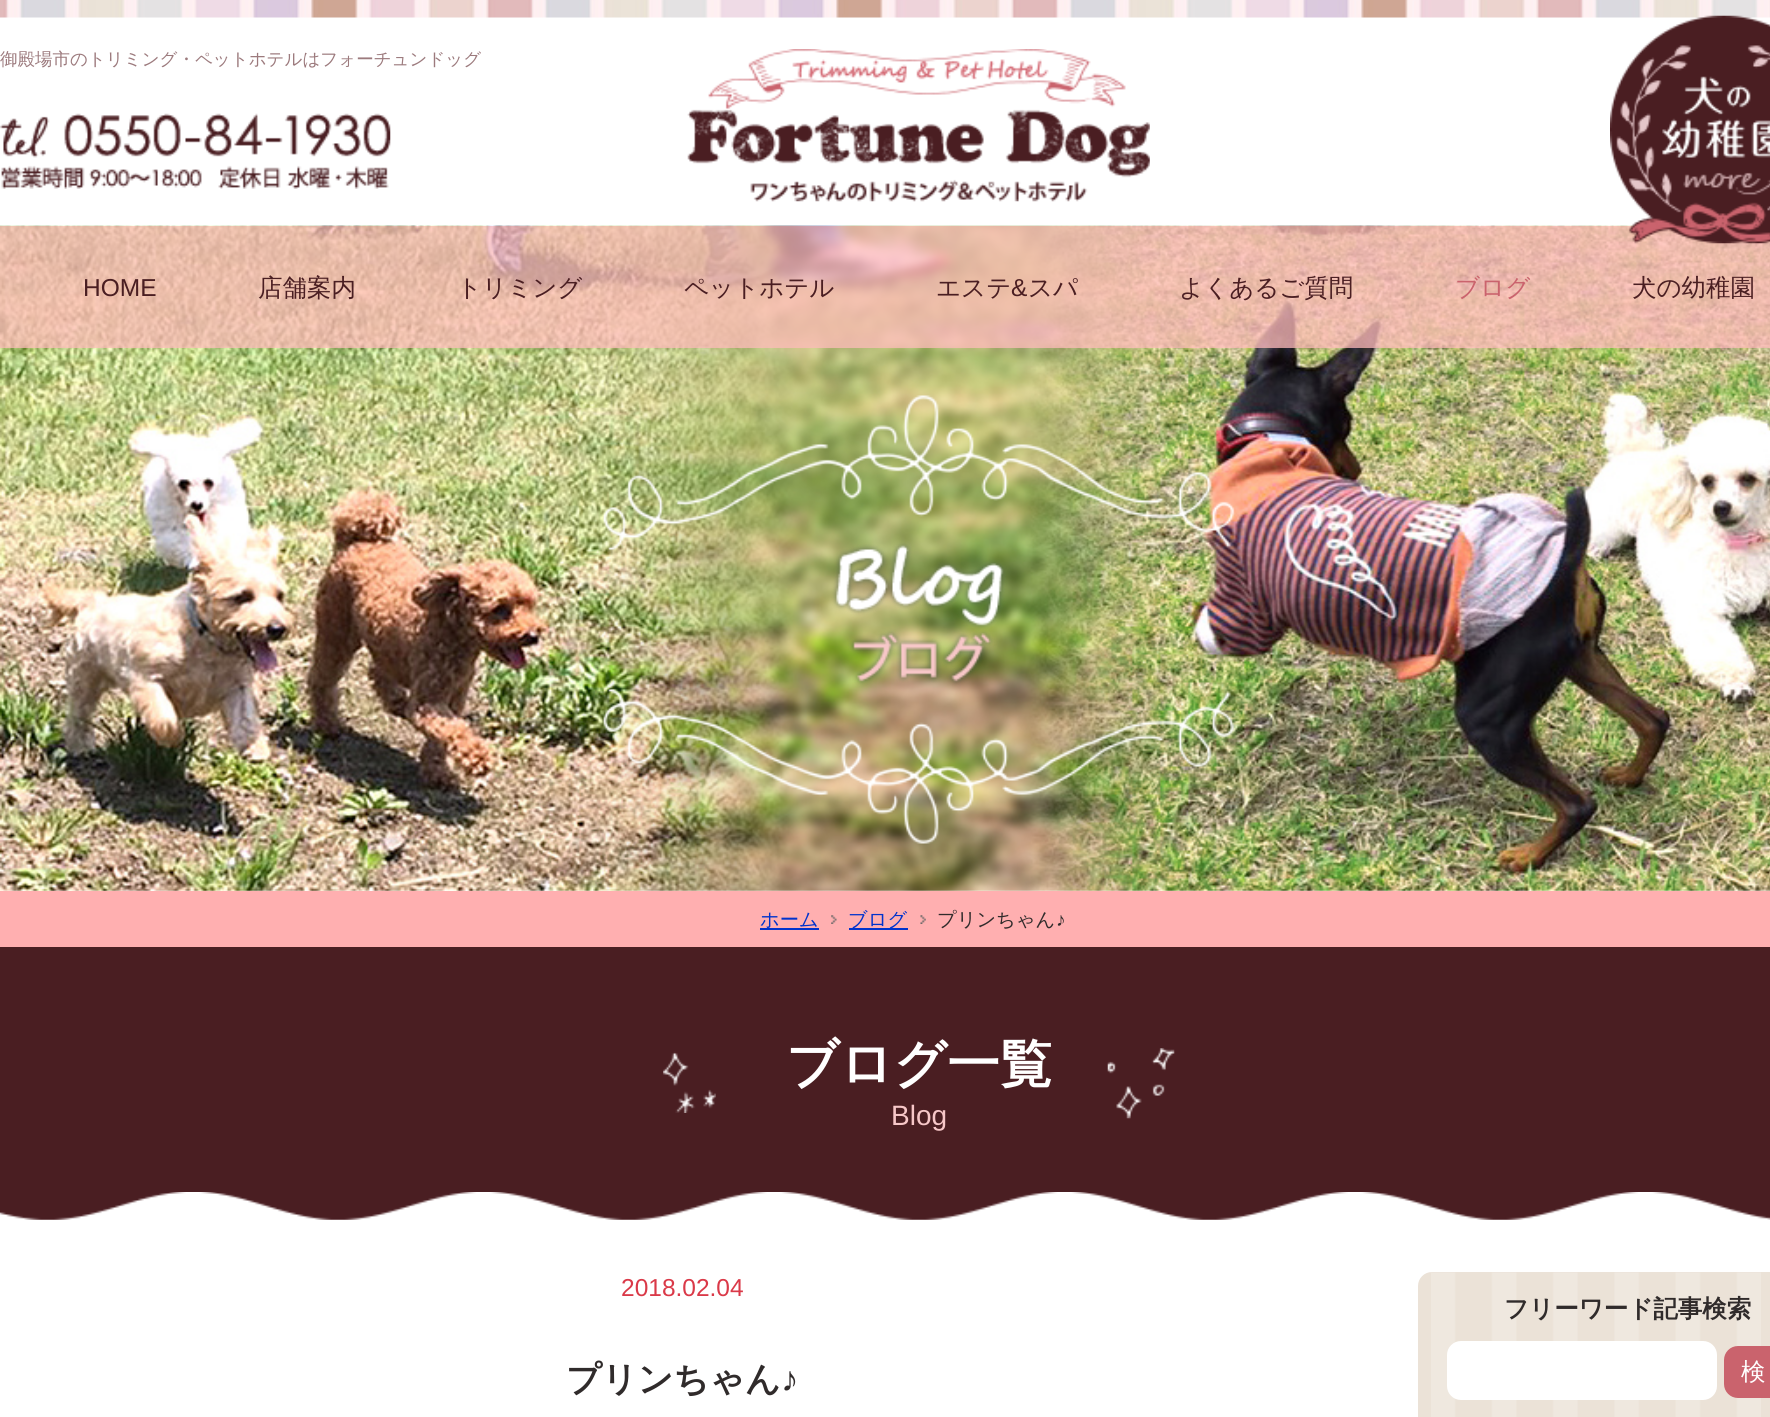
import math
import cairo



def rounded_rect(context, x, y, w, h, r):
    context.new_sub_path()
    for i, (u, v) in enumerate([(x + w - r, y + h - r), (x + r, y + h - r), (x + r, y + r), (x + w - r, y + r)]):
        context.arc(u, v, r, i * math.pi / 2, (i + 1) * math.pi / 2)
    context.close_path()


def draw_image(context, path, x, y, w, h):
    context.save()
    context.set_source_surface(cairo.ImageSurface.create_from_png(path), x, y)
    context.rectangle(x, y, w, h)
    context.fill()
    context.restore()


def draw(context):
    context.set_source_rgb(1, 1, 1)
    context.paint()
    draw_image(context, "images/1.png", 0, 0, 1770, 18)
    draw_image(context, "images/2.png", 687, 49, 463, 153)
    draw_image(context, "images/5.png", 0, 225, 1770, 666)
    context.set_source_rgba(1, 186 / 255, 187 / 255, 0.75)
    context.rectangle(0, 226, 1770, 122)
    context.fill()
    draw_image(context, "images/3.png", 1610, 15, 160, 229)
    draw_image(context, "images/4.png", 0, 113, 391, 76)
    draw_image(context, "images/6.png", 602, 395, 633, 449)
    context.set_source_rgb(1, 175 / 255, 176 / 255)
    context.rectangle(0, 891, 1770, 56)
    context.fill()
    context.set_source_rgb(0, 51 / 255, 204 / 255)
    context.rectangle(760, 928, 59, 2)
    context.fill()
    draw_image(context, "images/7.png", 831, 915, 6, 9)
    context.rectangle(849, 928, 59, 2)
    context.fill()
    draw_image(context, "images/8.png", 920, 915, 6, 9)
    context.set_source_rgb(74 / 255, 30 / 255, 34 / 255)
    context.rectangle(0, 947, 1770, 245)
    context.fill()
    draw_image(context, "images/9.png", 663, 1048, 512, 71)
    draw_image(context, "images/10.png", 0, 1192, 1770, 28)
    context.set_source_rgb(235 / 255, 226 / 255, 215 / 255)
    rounded_rect(context, 1418, 1272, 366, 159, 14)
    context.fill()
    draw_image(context, "images/11.png", 1431, 1272, 330, 145)
    context.set_source_rgb(1, 1, 1)
    rounded_rect(context, 1447, 1341, 270, 59, 14)
    context.fill()
    context.set_source_rgb(202 / 255, 99 / 255, 109 / 255)
    rounded_rect(context, 1724, 1346, 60, 52, 14)
    context.fill()
    context.select_font_face("WenQuanYi Zen Hei Medium")
    context.set_font_size(17.5)
    context.set_source_rgb(156 / 255, 122 / 255, 125 / 255)
    context.move_to(0, 65)
    context.show_text("御殿場市のトリミング・ペットホテルはフォーチュンドッグ")
    context.select_font_face("Liberation Sans")
    context.set_font_size(24.5)
    context.set_source_rgb(74 / 255, 30 / 255, 34 / 255)
    context.move_to(83, 296)
    context.show_text("HOME")
    context.select_font_face("WenQuanYi Zen Hei Medium")
    context.move_to(258, 296)
    context.show_text("店舗案内")
    context.move_to(457, 296)
    context.show_text("トリミング")
    context.move_to(684, 296)
    context.show_text("ペットホテル")
    context.move_to(936, 296)
    context.show_text("エステ")
    context.select_font_face("Liberation Sans")
    context.move_to(1011, 296)
    context.show_text("&")
    context.select_font_face("WenQuanYi Zen Hei Medium")
    context.move_to(1028, 296)
    context.show_text("スパ")
    context.move_to(1179, 296)
    context.show_text("よくあるご質問")
    context.set_source_rgb(202 / 255, 99 / 255, 109 / 255)
    context.move_to(1455, 296)
    context.show_text("ブログ")
    context.set_source_rgb(74 / 255, 30 / 255, 34 / 255)
    context.move_to(1632, 296)
    context.show_text("犬の幼稚園")
    context.set_font_size(19.25)
    context.set_source_rgb(0, 51 / 255, 204 / 255)
    context.move_to(760, 926)
    context.show_text("ホーム")
    context.move_to(848, 926)
    context.show_text("ブログ")
    context.set_source_rgb(48 / 255, 43 / 255, 43 / 255)
    context.move_to(937, 926)
    context.show_text("プリンちゃん")
    context.select_font_face("Liberation Sans")
    context.move_to(1056, 926)
    context.show_text("♪")
    context.select_font_face("WenQuanYi Zen Hei", cairo.FontSlant.NORMAL, cairo.FontWeight.BOLD)
    context.set_font_size(52.5)
    context.set_source_rgb(1, 1, 1)
    context.move_to(786, 1082)
    context.show_text("ブログ一覧")
    context.select_font_face("Liberation Sans")
    context.set_font_size(28)
    context.set_source_rgb(247 / 255, 199 / 255, 200 / 255)
    context.move_to(891, 1125)
    context.show_text("Blog")
    context.set_font_size(24.5)
    context.set_source_rgb(218 / 255, 57 / 255, 72 / 255)
    context.move_to(621, 1296)
    context.show_text("2018.02.04")
    context.select_font_face("WenQuanYi Zen Hei", cairo.FontSlant.NORMAL, cairo.FontWeight.BOLD)
    context.set_font_size(35)
    context.set_source_rgb(48 / 255, 43 / 255, 43 / 255)
    context.move_to(566, 1391)
    context.show_text("プリンちゃん")
    context.select_font_face("Liberation Sans", cairo.FontSlant.NORMAL, cairo.FontWeight.BOLD)
    context.move_to(781, 1391)
    context.show_text("♪")
    context.select_font_face("WenQuanYi Zen Hei", cairo.FontSlant.NORMAL, cairo.FontWeight.BOLD)
    context.set_font_size(24.5)
    context.move_to(1504, 1317)
    context.show_text("フリーワード記事検索")
    context.select_font_face("WenQuanYi Zen Hei Medium")
    context.set_source_rgb(1, 1, 1)
    context.move_to(1741, 1380)
    context.show_text("検")


surface = cairo.ImageSurface(cairo.Format.RGB24, 1770, 1417)
context = cairo.Context(surface)
options = cairo.FontOptions()
options.set_hint_metrics(cairo.HintMetrics.OFF)
options.set_hint_style(cairo.HintStyle.NONE)
context.set_font_options(options)
context.set_miter_limit(4)
draw(context)
surface.write_to_png("out.png")
